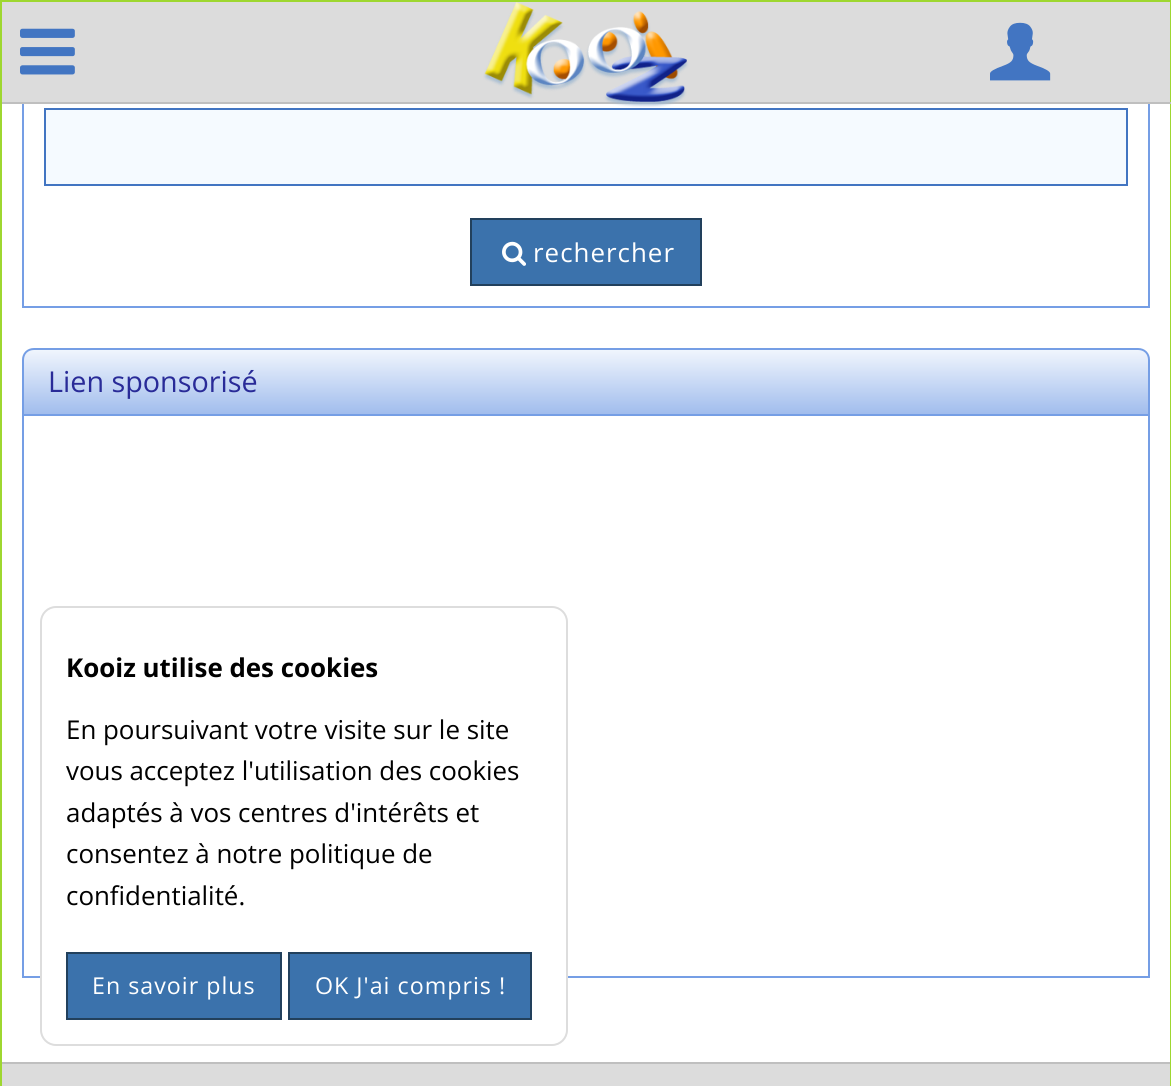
import math
import cairo



def draw_spaced(context, x, y, s, letter, word):
    context.move_to(x, y)
    for ch in s:
        context.show_text(ch)
        context.rel_move_to(letter + word * (ch == ' '), 0)


def rounded_rect(context, x, y, w, h, r):
    context.new_sub_path()
    for i, (u, v) in enumerate([(x + w - r, y + h - r), (x + r, y + h - r), (x + r, y + r), (x + w - r, y + r)]):
        context.arc(u, v, r, i * math.pi / 2, (i + 1) * math.pi / 2)
    context.close_path()


def draw_image(context, path, x, y, w, h):
    context.save()
    context.set_source_surface(cairo.ImageSurface.create_from_png(path), x, y)
    context.rectangle(x, y, w, h)
    context.fill()
    context.restore()


def draw(context):
    context.set_source_rgb(1, 1, 1)
    context.paint()
    context.rectangle(23, 37, 1126, 270)
    context.set_source_rgb(117 / 255, 158 / 255, 229 / 255)
    context.stroke()
    context.set_source_rgb(220 / 255, 220 / 255, 220 / 255)
    context.rectangle(2, 2, 1168, 100)
    context.fill()
    context.set_source_rgb(158 / 255, 215 / 255, 48 / 255)
    context.rectangle(0, 0, 1171, 2)
    context.fill()
    context.rectangle(1170, 0, 1, 104)
    context.fill()
    context.set_source_rgb(191 / 255, 191 / 255, 191 / 255)
    context.rectangle(0, 102, 1171, 2)
    context.fill()
    context.set_source_rgb(158 / 255, 215 / 255, 48 / 255)
    context.rectangle(0, 0, 2, 104)
    context.fill()
    draw_image(context, "images/1.png", 483, 2, 206, 106)
    draw_image(context, "images/2.png", 20, 28, 55, 47)
    draw_image(context, "images/3.png", 990, 22, 61, 59)
    context.rectangle(1170, 104, 1, 958)
    context.fill()
    context.rectangle(0, 104, 2, 958)
    context.fill()
    context.set_source_rgb(245 / 255, 250 / 255, 1)
    context.rectangle(45, 109, 1082, 76)
    context.fill_preserve()
    context.set_source_rgb(66 / 255, 117 / 255, 194 / 255)
    context.stroke()
    context.set_source_rgb(59 / 255, 114 / 255, 172 / 255)
    context.rectangle(471, 219, 230, 66)
    context.fill_preserve()
    context.set_source_rgb(34 / 255, 64 / 255, 92 / 255)
    context.stroke()
    draw_image(context, "images/4.png", 502, 241, 24, 25)
    context.save()
    context.new_path()
    context.move_to(34, 348)
    context.line_to(1138, 348)
    context.curve_to(1144.5, 348, 1150, 353.5, 1150, 360)
    context.line_to(1150, 414)
    context.line_to(22, 414)
    context.line_to(22, 360)
    context.curve_to(22, 353.5, 27.5, 348, 34, 348)
    context.close_path()
    context.clip()
    gradient = cairo.LinearGradient(586, 414, 586, 350)
    gradient.add_color_stop_rgba(0, 161 / 255, 189 / 255, 237 / 255, 1)
    gradient.add_color_stop_rgba(1, 240 / 255, 245 / 255, 253 / 255, 1)
    context.set_source(gradient)
    context.rectangle(22, 350, 1128, 64)
    context.fill()
    context.restore()
    context.set_source_rgb(117 / 255, 158 / 255, 229 / 255)
    context.set_fill_rule(cairo.FillRule.EVEN_ODD)
    context.new_path()
    context.move_to(34, 348)
    context.line_to(1138, 348)
    context.curve_to(1145, 348, 1150, 353, 1150, 360)
    context.line_to(1150, 414)
    context.line_to(22, 414)
    context.line_to(22, 360)
    context.curve_to(22, 353, 27, 348, 34, 348)
    context.close_path()
    context.move_to(34, 350)
    context.line_to(1138, 350)
    context.curve_to(1144, 350, 1148, 354, 1148, 360)
    context.line_to(1148, 414)
    context.line_to(24, 414)
    context.line_to(24, 360)
    context.curve_to(24, 354, 28, 350, 34, 350)
    context.close_path()
    context.fill()
    context.rectangle(23, 415, 1126, 562)
    context.stroke()
    context.set_source_rgb(220 / 255, 220 / 255, 220 / 255)
    context.rectangle(2, 1064, 1168, 22)
    context.fill()
    context.set_source_rgb(191 / 255, 191 / 255, 191 / 255)
    context.rectangle(0, 1062, 1171, 2)
    context.fill()
    context.set_source_rgb(158 / 255, 215 / 255, 48 / 255)
    context.rectangle(1170, 1062, 1, 24)
    context.fill()
    context.rectangle(0, 1062, 2, 24)
    context.fill()
    context.set_source_rgb(1, 1, 1)
    rounded_rect(context, 41, 607, 526, 438, 15)
    context.fill_preserve()
    context.set_source_rgb(221 / 255, 221 / 255, 221 / 255)
    context.stroke()
    context.set_source_rgb(59 / 255, 114 / 255, 172 / 255)
    context.rectangle(67, 953, 214, 66)
    context.fill_preserve()
    context.set_source_rgb(34 / 255, 64 / 255, 92 / 255)
    context.stroke()
    context.set_source_rgb(59 / 255, 114 / 255, 172 / 255)
    context.rectangle(289, 953, 242, 66)
    context.fill_preserve()
    context.set_source_rgb(34 / 255, 64 / 255, 92 / 255)
    context.stroke()
    context.select_font_face("Open Sans")
    context.set_font_size(25.9)
    context.set_source_rgb(1, 1, 1)
    draw_spaced(context, 533, 262, "rechercher", 1, 0)
    context.set_font_size(28.75)
    context.set_source_rgb(41 / 255, 43 / 255, 152 / 255)
    context.move_to(48, 392)
    context.show_text("Lien sponsorisé")
    context.select_font_face("Open Sans", cairo.FontSlant.NORMAL, cairo.FontWeight.BOLD)
    context.set_font_size(25.9)
    context.set_source_rgb(0, 0, 0)
    context.move_to(66, 677)
    context.show_text("Kooiz utilise des cookies")
    context.select_font_face("Open Sans")
    context.move_to(66, 739)
    context.show_text("En poursuivant votre visite sur le site")
    context.move_to(66, 780)
    context.show_text("vous acceptez l'utilisation des cookies")
    context.move_to(66, 822)
    context.show_text("adaptés à vos centres d'intérêts et")
    context.move_to(66, 863)
    context.show_text("consentez à notre politique de")
    context.move_to(66, 905)
    context.show_text("confidentialité.")
    context.set_font_size(23.25)
    context.set_source_rgb(1, 1, 1)
    draw_spaced(context, 92, 994, "En savoir plus", 1, 0)
    draw_spaced(context, 315, 994, "OK J'ai compris !", 1, 0)


surface = cairo.ImageSurface(cairo.Format.RGB24, 1171, 1086)
context = cairo.Context(surface)
options = cairo.FontOptions()
options.set_hint_metrics(cairo.HintMetrics.OFF)
options.set_hint_style(cairo.HintStyle.NONE)
context.set_font_options(options)
context.set_miter_limit(4)
draw(context)
surface.write_to_png("out.png")
